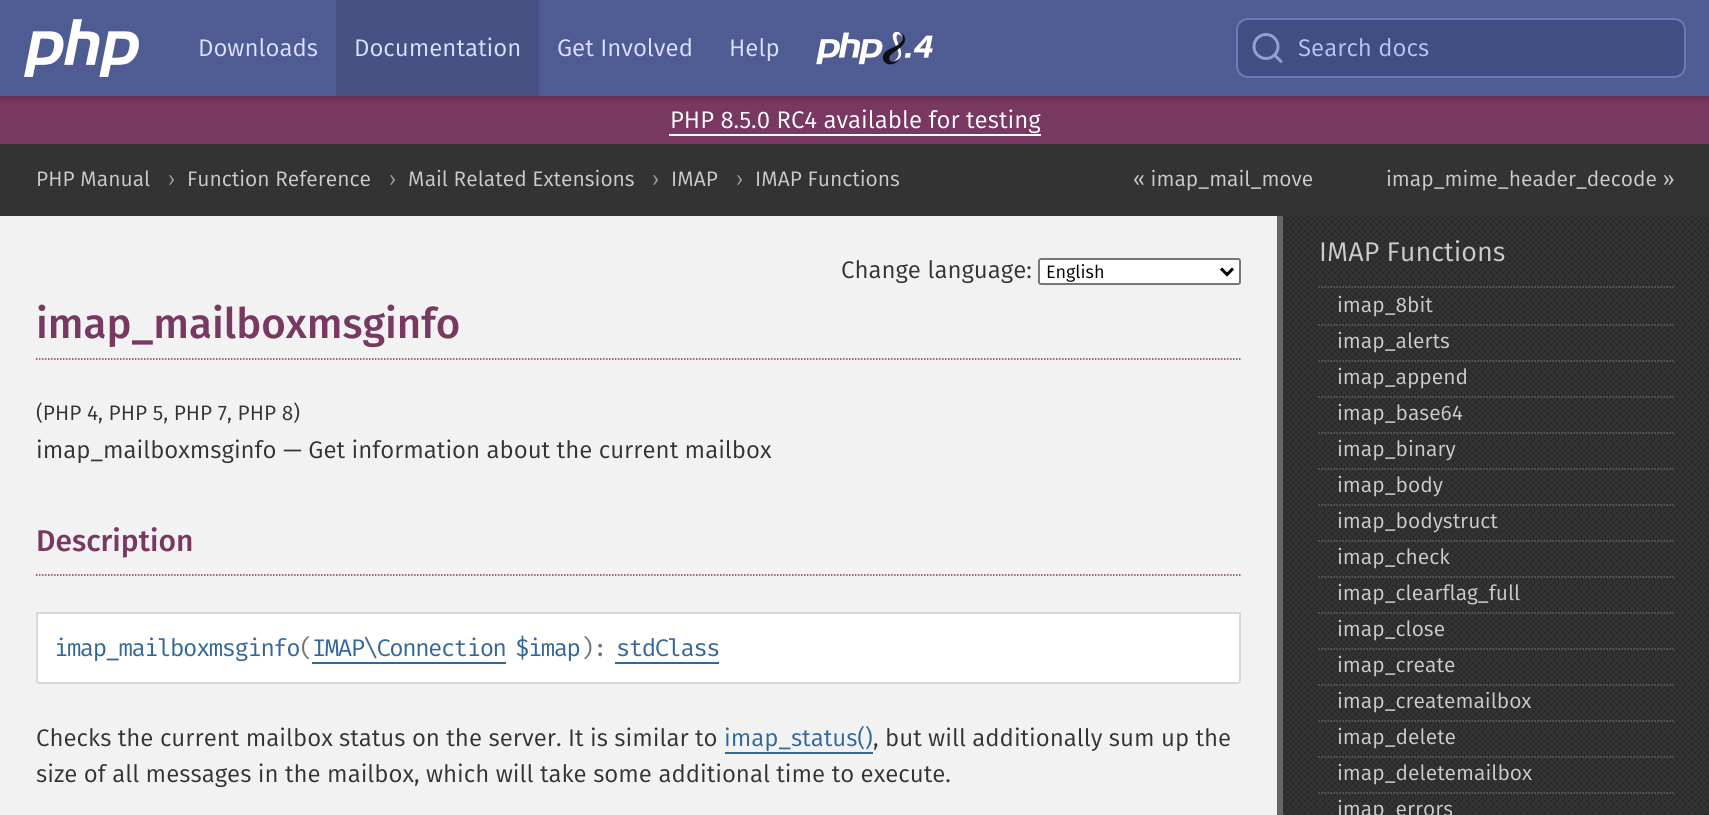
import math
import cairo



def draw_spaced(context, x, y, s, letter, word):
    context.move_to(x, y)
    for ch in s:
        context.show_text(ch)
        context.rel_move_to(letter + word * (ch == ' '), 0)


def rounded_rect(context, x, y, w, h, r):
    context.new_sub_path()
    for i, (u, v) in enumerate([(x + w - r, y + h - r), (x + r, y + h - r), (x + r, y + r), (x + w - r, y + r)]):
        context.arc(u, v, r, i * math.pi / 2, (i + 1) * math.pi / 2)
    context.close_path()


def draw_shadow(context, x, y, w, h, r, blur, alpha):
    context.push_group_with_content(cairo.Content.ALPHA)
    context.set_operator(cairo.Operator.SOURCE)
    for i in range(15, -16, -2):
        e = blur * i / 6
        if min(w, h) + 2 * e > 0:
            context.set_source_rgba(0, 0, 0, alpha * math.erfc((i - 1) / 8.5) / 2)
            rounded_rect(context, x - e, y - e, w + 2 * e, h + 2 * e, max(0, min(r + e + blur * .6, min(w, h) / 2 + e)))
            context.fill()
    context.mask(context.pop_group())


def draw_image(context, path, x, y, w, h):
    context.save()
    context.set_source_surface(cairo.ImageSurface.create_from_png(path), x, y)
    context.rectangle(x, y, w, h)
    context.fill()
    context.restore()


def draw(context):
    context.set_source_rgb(51 / 255, 51 / 255, 51 / 255)
    context.paint()
    draw_image(context, "images/1.png", 1283, 216, 426, 599)
    context.set_source_rgb(121 / 255, 56 / 255, 98 / 255)
    context.rectangle(0, 96, 1709, 48)
    context.fill()
    context.set_source_rgb(0, 0, 0)
    draw_shadow(context, 0, 3, 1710, 96, 0, 3, 0.2)
    context.set_source_rgb(79 / 255, 91 / 255, 147 / 255)
    context.rectangle(0, 0, 1709, 96)
    context.fill()
    draw_image(context, "images/2.png", 24, 19, 115, 58)
    context.set_source_rgb(71 / 255, 82 / 255, 132 / 255)
    context.rectangle(336, 0, 203, 96)
    context.fill()
    draw_image(context, "images/3.png", 816, 32, 117, 33)
    context.set_source_rgb(64 / 255, 79 / 255, 130 / 255)
    rounded_rect(context, 1237, 19, 448, 58, 11)
    context.fill_preserve()
    context.set_source_rgb(106 / 255, 120 / 255, 190 / 255)
    context.stroke()
    context.arc(1266, 46.5, 12, 0, 2 * math.pi)
    context.set_source_rgb(144 / 255, 160 / 255, 208 / 255)
    context.set_line_width(3)
    context.stroke()
    context.new_path()
    context.move_to(1281, 61.5)
    context.line_to(1274.5, 55)
    context.set_line_cap(cairo.LineCap.ROUND)
    context.set_line_join(cairo.LineJoin.ROUND)
    context.stroke()
    context.set_source_rgb(1, 1, 1)
    context.rectangle(669, 134, 372, 2)
    context.fill()
    context.set_source_rgb(242 / 255, 242 / 255, 242 / 255)
    context.rectangle(0, 216, 1277, 599)
    context.fill()
    context.set_source_rgb(102 / 255, 102 / 255, 102 / 255)
    context.rectangle(1277, 216, 6, 599)
    context.fill()
    context.set_source_rgb(1, 1, 1)
    rounded_rect(context, 1039, 259, 201, 25, 2)
    context.fill_preserve()
    context.set_source_rgb(118 / 255, 118 / 255, 118 / 255)
    context.set_line_width(2)
    context.set_line_cap(cairo.LineCap.BUTT)
    context.set_line_join(cairo.LineJoin.MITER)
    context.stroke()
    context.new_path()
    context.move_to(1221, 268.5)
    context.line_to(1227, 274.5)
    context.line_to(1233, 268.5)
    context.set_source_rgb(0, 0, 0)
    context.set_line_width(3)
    context.stroke()
    context.new_path()
    context.move_to(36, 359)
    context.line_to(1240.5, 359)
    context.set_source_rgb(121 / 255, 56 / 255, 98 / 255)
    context.set_line_width(1.5)
    context.set_dash([1.5, 1.5])
    context.stroke()
    context.new_path()
    context.move_to(36, 575)
    context.line_to(1240.5, 575)
    context.stroke()
    context.set_source_rgb(1, 1, 1)
    context.new_path()
    context.move_to(36, 612)
    context.line_to(1241, 612)
    context.line_to(1241, 681)
    context.curve_to(1241, 682.5, 1239.5, 684, 1238, 684)
    context.line_to(39, 684)
    context.curve_to(37.5, 684, 36, 682.5, 36, 681)
    context.close_path()
    context.fill()
    context.new_path()
    context.move_to(37, 613)
    context.line_to(1240, 613)
    context.line_to(1240, 681)
    context.curve_to(1240, 682, 1239, 683, 1238, 683)
    context.line_to(39, 683)
    context.curve_to(38, 683, 37, 682, 37, 681)
    context.close_path()
    context.set_source_rgba(0, 0, 0, 0.15)
    context.set_line_width(2)
    context.set_dash([])
    context.stroke()
    context.set_source_rgb(51 / 255, 102 / 255, 153 / 255)
    context.rectangle(312, 662, 194, 2)
    context.fill()
    context.rectangle(615, 662, 104, 2)
    context.fill()
    context.rectangle(725, 752, 148, 2)
    context.fill()
    context.new_path()
    context.move_to(1318.5, 287)
    context.line_to(1674, 287)
    context.set_source_rgb(102 / 255, 102 / 255, 102 / 255)
    context.set_line_width(1.5)
    context.set_dash([1.5, 1.5])
    context.stroke()
    context.new_path()
    context.move_to(1318.5, 325)
    context.line_to(1674, 325)
    context.stroke()
    context.new_path()
    context.move_to(1318.5, 361)
    context.line_to(1674, 361)
    context.stroke()
    context.new_path()
    context.move_to(1318.5, 397)
    context.line_to(1674, 397)
    context.stroke()
    context.new_path()
    context.move_to(1318.5, 433)
    context.line_to(1674, 433)
    context.stroke()
    context.new_path()
    context.move_to(1318.5, 469)
    context.line_to(1674, 469)
    context.stroke()
    context.new_path()
    context.move_to(1318.5, 505)
    context.line_to(1674, 505)
    context.stroke()
    context.new_path()
    context.move_to(1318.5, 541)
    context.line_to(1674, 541)
    context.stroke()
    context.new_path()
    context.move_to(1318.5, 577)
    context.line_to(1674, 577)
    context.stroke()
    context.new_path()
    context.move_to(1318.5, 613)
    context.line_to(1674, 613)
    context.stroke()
    context.new_path()
    context.move_to(1318.5, 649)
    context.line_to(1674, 649)
    context.stroke()
    context.new_path()
    context.move_to(1318.5, 685)
    context.line_to(1674, 685)
    context.stroke()
    context.new_path()
    context.move_to(1318.5, 721)
    context.line_to(1674, 721)
    context.stroke()
    context.new_path()
    context.move_to(1318.5, 757)
    context.line_to(1674, 757)
    context.stroke()
    context.new_path()
    context.move_to(1318.5, 793)
    context.line_to(1674, 793)
    context.stroke()
    context.select_font_face("Fira Sans")
    context.set_font_size(24)
    context.set_source_rgb(219 / 255, 225 / 255, 1)
    context.move_to(198, 56)
    context.show_text("Downloads")
    context.move_to(354, 56)
    context.show_text("Documentation")
    context.move_to(557, 56)
    context.show_text("Get Involved")
    context.move_to(729, 56)
    context.show_text("Help")
    context.set_source_rgb(185 / 255, 195 / 255, 244 / 255)
    context.move_to(1298, 56)
    context.show_text("Search docs")
    context.set_source_rgb(1, 1, 1)
    context.move_to(670, 128)
    context.show_text("PHP 8.5.0 RC4 available for testing")
    context.set_font_size(21)
    context.set_source_rgb(204 / 255, 204 / 255, 204 / 255)
    context.move_to(36, 186)
    context.show_text("PHP Manual")
    context.set_source_rgb(153 / 255, 153 / 255, 153 / 255)
    context.move_to(168, 186)
    context.show_text("›")
    context.set_source_rgb(204 / 255, 204 / 255, 204 / 255)
    context.move_to(187, 186)
    context.show_text("Function Reference")
    context.set_source_rgb(153 / 255, 153 / 255, 153 / 255)
    context.move_to(389, 186)
    context.show_text("›")
    context.set_source_rgb(204 / 255, 204 / 255, 204 / 255)
    context.move_to(408, 186)
    context.show_text("Mail Related Extensions")
    context.set_source_rgb(153 / 255, 153 / 255, 153 / 255)
    context.move_to(652, 186)
    context.show_text("›")
    context.set_source_rgb(204 / 255, 204 / 255, 204 / 255)
    context.move_to(671, 186)
    context.show_text("IMAP")
    context.set_source_rgb(153 / 255, 153 / 255, 153 / 255)
    context.move_to(736, 186)
    context.show_text("›")
    context.set_source_rgb(204 / 255, 204 / 255, 204 / 255)
    context.move_to(755, 186)
    context.show_text("IMAP Functions")
    context.move_to(1133, 186)
    context.show_text("« imap_mail_move")
    context.move_to(1386, 186)
    context.show_text("imap_mime_header_decode »")
    context.set_font_size(24)
    context.set_source_rgb(51 / 255, 51 / 255, 51 / 255)
    context.move_to(841, 278)
    context.show_text("Change language:")
    context.set_font_size(18)
    context.set_source_rgb(0, 0, 0)
    context.move_to(1046, 278)
    context.show_text("English")
    context.select_font_face("Fira Sans Medium")
    context.set_font_size(42)
    context.set_source_rgb(121 / 255, 56 / 255, 98 / 255)
    context.move_to(36, 338)
    context.show_text("imap_mailboxmsginfo")
    context.select_font_face("Fira Sans")
    context.set_font_size(21)
    context.set_source_rgb(51 / 255, 51 / 255, 51 / 255)
    context.move_to(36, 420)
    context.show_text("(PHP 4, PHP 5, PHP 7, PHP 8)")
    context.set_font_size(24)
    context.move_to(36, 458)
    context.show_text("imap_mailboxmsginfo — Get information about the current mailbox")
    context.select_font_face("Fira Sans Medium")
    context.set_font_size(30)
    context.set_source_rgb(121 / 255, 56 / 255, 98 / 255)
    context.move_to(36, 551)
    context.show_text("Description")
    context.select_font_face("Fira Mono")
    context.set_font_size(24)
    context.set_source_rgb(51 / 255, 102 / 255, 153 / 255)
    draw_spaced(context, 515, 656, "$imap", -1.5, 0)
    context.set_source_rgb(115 / 255, 115 / 255, 115 / 255)
    draw_spaced(context, 580, 656, "):", -1.5, 0)
    context.set_source_rgb(51 / 255, 102 / 255, 153 / 255)
    draw_spaced(context, 54, 656, "imap_mailboxmsginfo IMAP\\Connection", -1.5, 0)
    context.set_source_rgb(115 / 255, 115 / 255, 115 / 255)
    draw_spaced(context, 299, 656, "(", -1.5, 0)
    context.set_source_rgb(51 / 255, 102 / 255, 153 / 255)
    draw_spaced(context, 616, 656, "stdClass", -1.5, 0)
    context.select_font_face("Fira Sans")
    context.set_source_rgb(51 / 255, 51 / 255, 51 / 255)
    context.move_to(36, 746)
    context.show_text("Checks the current mailbox status on the server. It is similar to")
    context.set_source_rgb(51 / 255, 102 / 255, 153 / 255)
    context.move_to(724, 746)
    context.show_text("imap_status()")
    context.set_source_rgb(51 / 255, 51 / 255, 51 / 255)
    context.move_to(873, 746)
    context.show_text(", but will additionally sum up the")
    context.move_to(36, 782)
    context.show_text("size of all messages in the mailbox, which will take some additional time to execute.")
    context.set_font_size(27)
    context.set_source_rgb(204 / 255, 204 / 255, 204 / 255)
    context.move_to(1319, 261)
    context.show_text("IMAP Functions")
    context.set_font_size(21)
    context.move_to(1337, 312)
    context.show_text("imap_8bit")
    context.move_to(1337, 348)
    context.show_text("imap_alerts")
    context.move_to(1337, 384)
    context.show_text("imap_append")
    context.move_to(1337, 420)
    context.show_text("imap_base64")
    context.move_to(1337, 456)
    context.show_text("imap_binary")
    context.move_to(1337, 492)
    context.show_text("imap_body")
    context.move_to(1337, 528)
    context.show_text("imap_bodystruct")
    context.move_to(1337, 564)
    context.show_text("imap_check")
    context.move_to(1337, 600)
    context.show_text("imap_clearflag_full")
    context.move_to(1337, 636)
    context.show_text("imap_close")
    context.move_to(1337, 672)
    context.show_text("imap_create")
    context.move_to(1337, 708)
    context.show_text("imap_createmailbox")
    context.move_to(1337, 744)
    context.show_text("imap_delete")
    context.move_to(1337, 780)
    context.show_text("imap_deletemailbox")
    context.move_to(1337, 816)
    context.show_text("imap_errors")


surface = cairo.ImageSurface(cairo.Format.RGB24, 1709, 815)
context = cairo.Context(surface)
options = cairo.FontOptions()
options.set_hint_metrics(cairo.HintMetrics.OFF)
options.set_hint_style(cairo.HintStyle.NONE)
context.set_font_options(options)
context.set_miter_limit(4)
draw(context)
surface.write_to_png("out.png")
